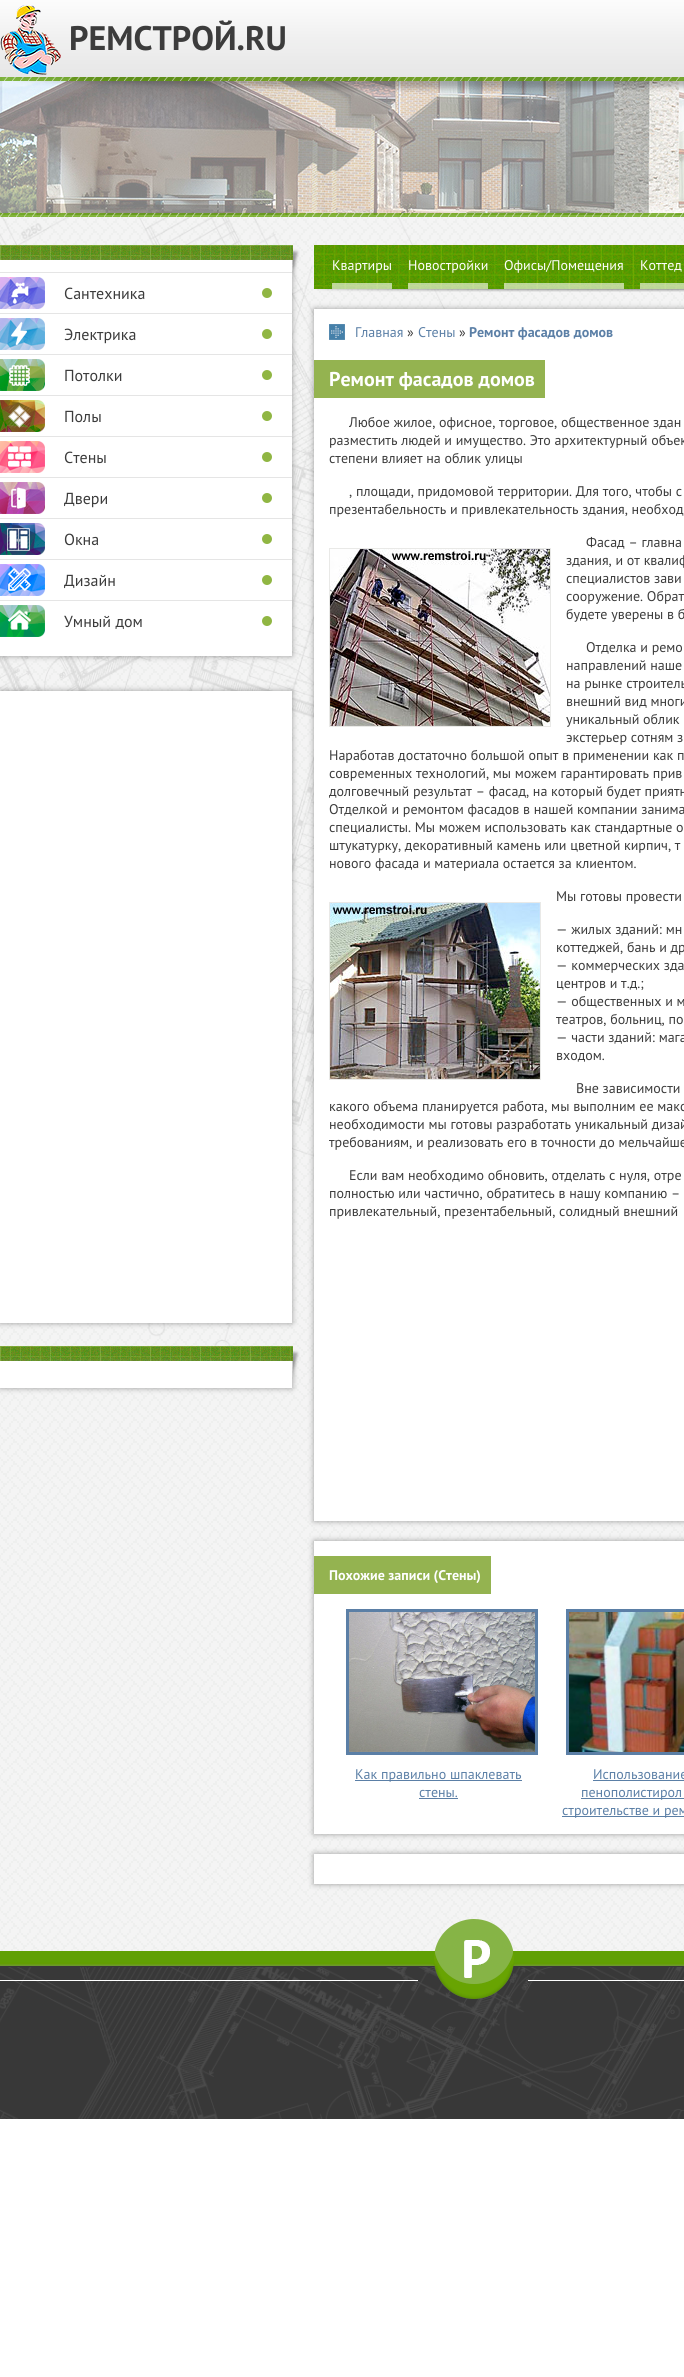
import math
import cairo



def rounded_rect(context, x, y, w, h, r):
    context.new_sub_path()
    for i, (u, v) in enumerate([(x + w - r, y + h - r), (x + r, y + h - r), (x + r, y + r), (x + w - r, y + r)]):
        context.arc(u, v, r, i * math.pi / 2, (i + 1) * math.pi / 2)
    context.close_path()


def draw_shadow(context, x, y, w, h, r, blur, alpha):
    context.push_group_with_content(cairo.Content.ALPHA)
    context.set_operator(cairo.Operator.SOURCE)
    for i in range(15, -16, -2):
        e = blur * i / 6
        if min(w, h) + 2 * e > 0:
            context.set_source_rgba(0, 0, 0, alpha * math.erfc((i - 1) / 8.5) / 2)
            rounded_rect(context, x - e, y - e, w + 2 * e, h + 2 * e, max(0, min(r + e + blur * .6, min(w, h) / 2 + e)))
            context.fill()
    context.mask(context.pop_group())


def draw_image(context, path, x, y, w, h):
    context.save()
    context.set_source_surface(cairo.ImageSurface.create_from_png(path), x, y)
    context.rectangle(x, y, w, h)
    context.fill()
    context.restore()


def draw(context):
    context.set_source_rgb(1, 1, 1)
    context.paint()
    draw_image(context, "images/1.png", 0, 77, 684, 138)
    draw_image(context, "images/2.png", 0, 0, 684, 92)
    draw_image(context, "images/3.png", 0, 5, 61, 70)
    draw_image(context, "images/4.png", 0, 215, 684, 1749)
    draw_image(context, "images/5.png", 0, 213, 684, 4)
    context.set_source_rgb(0, 0, 0)
    draw_shadow(context, 0, 257, 292, 399, 0, 3, 0.37)
    context.set_source_rgb(1, 1, 1)
    context.rectangle(0, 260, 292, 396)
    context.fill()
    draw_image(context, "images/6.png", 0, 245, 300, 37)
    context.set_source_rgb(229 / 255, 229 / 255, 229 / 255)
    context.rectangle(0, 272, 292, 1)
    context.fill()
    draw_image(context, "images/7.png", 0, 277, 45, 32)
    draw_image(context, "images/8.png", 262, 288, 10, 10)
    context.rectangle(0, 313, 292, 1)
    context.fill()
    draw_image(context, "images/9.png", 0, 318, 45, 32)
    draw_image(context, "images/8.png", 262, 329, 10, 10)
    context.rectangle(0, 354, 292, 1)
    context.fill()
    draw_image(context, "images/10.png", 0, 359, 45, 32)
    draw_image(context, "images/8.png", 262, 370, 10, 10)
    context.rectangle(0, 395, 292, 1)
    context.fill()
    draw_image(context, "images/11.png", 0, 400, 45, 32)
    draw_image(context, "images/8.png", 262, 411, 10, 10)
    context.rectangle(0, 436, 292, 1)
    context.fill()
    draw_image(context, "images/12.png", 0, 441, 45, 32)
    draw_image(context, "images/8.png", 262, 452, 10, 10)
    context.rectangle(0, 477, 292, 1)
    context.fill()
    draw_image(context, "images/13.png", 0, 482, 45, 32)
    draw_image(context, "images/8.png", 262, 493, 10, 10)
    context.rectangle(0, 518, 292, 1)
    context.fill()
    draw_image(context, "images/14.png", 0, 523, 45, 32)
    draw_image(context, "images/8.png", 262, 534, 10, 10)
    context.rectangle(0, 559, 292, 1)
    context.fill()
    draw_image(context, "images/15.png", 0, 564, 45, 32)
    draw_image(context, "images/8.png", 262, 575, 10, 10)
    context.rectangle(0, 600, 292, 1)
    context.fill()
    draw_image(context, "images/16.png", 0, 605, 45, 32)
    draw_image(context, "images/8.png", 262, 616, 10, 10)
    context.set_source_rgb(0, 0, 0)
    draw_shadow(context, 0, 691, 292, 632, 0, 3, 0.37)
    context.set_source_rgb(1, 1, 1)
    context.rectangle(0, 691, 292, 632)
    context.fill()
    context.set_source_rgb(0, 0, 0)
    draw_shadow(context, 0, 1358, 292, 30, 0, 3, 0.37)
    context.set_source_rgb(1, 1, 1)
    context.rectangle(0, 1361, 292, 27)
    context.fill()
    draw_image(context, "images/17.png", 0, 1346, 300, 37)
    draw_image(context, "images/18.png", 314, 245, 370, 47)
    context.set_source_rgba(1, 1, 1, 0.6)
    context.rectangle(332, 283, 60, 6)
    context.fill()
    context.rectangle(408, 283, 80, 6)
    context.fill()
    context.rectangle(504, 283, 120, 6)
    context.fill()
    context.rectangle(640, 283, 44, 6)
    context.fill()
    context.set_source_rgb(0, 0, 0)
    draw_shadow(context, 314, 309, 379, 1212, 0, 3, 0.37)
    context.set_source_rgb(1, 1, 1)
    context.rectangle(314, 309, 370, 1212)
    context.fill()
    draw_image(context, "images/19.png", 329, 324, 16, 16)
    context.set_source_rgb(148 / 255, 179 / 255, 80 / 255)
    context.rectangle(314, 360, 231, 38)
    context.fill()
    context.rectangle(329.5, 548.5, 221, 178)
    context.set_source_rgb(233 / 255, 233 / 255, 231 / 255)
    context.set_line_width(1)
    context.stroke()
    draw_image(context, "images/20.png", 330, 549, 220, 177)
    context.rectangle(329.5, 902.5, 211, 177)
    context.stroke()
    draw_image(context, "images/21.png", 330, 903, 210, 176)
    context.set_source_rgb(0, 0, 0)
    draw_shadow(context, 314, 1541, 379, 293, 0, 3, 0.37)
    context.set_source_rgb(1, 1, 1)
    context.rectangle(314, 1541, 370, 293)
    context.fill()
    context.set_source_rgb(148 / 255, 179 / 255, 80 / 255)
    context.rectangle(314, 1556, 177, 38)
    context.fill()
    context.rectangle(347.5, 1610.5, 189, 143)
    context.set_source_rgb(91 / 255, 127 / 255, 166 / 255)
    context.set_line_width(3)
    context.stroke()
    draw_image(context, "images/22.png", 349, 1612, 186, 140)
    context.rectangle(355, 1780, 167, 1)
    context.fill()
    context.rectangle(419, 1798, 39, 1)
    context.fill()
    context.rectangle(567.5, 1610.5, 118, 143)
    context.stroke()
    draw_image(context, "images/23.png", 569, 1612, 115, 140)
    context.rectangle(593, 1780, 91, 1)
    context.fill()
    context.rectangle(581, 1798, 103, 1)
    context.fill()
    context.rectangle(562, 1816, 122, 1)
    context.fill()
    context.set_source_rgb(0, 0, 0)
    draw_shadow(context, 314, 1854, 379, 30, 0, 3, 0.37)
    context.set_source_rgb(1, 1, 1)
    context.rectangle(314, 1854, 370, 30)
    context.fill()
    draw_image(context, "images/24.png", 0, 1919, 684, 200)
    context.select_font_face("PT Sans", cairo.FontSlant.NORMAL, cairo.FontWeight.BOLD)
    context.set_font_size(34)
    context.set_source_rgb(60 / 255, 60 / 255, 60 / 255)
    context.move_to(69, 50)
    context.show_text("РЕМСТРОЙ.RU")
    context.select_font_face("PT Sans")
    context.set_font_size(16)
    context.move_to(64, 299)
    context.show_text("Сантехника")
    context.move_to(64, 340)
    context.show_text("Электрика")
    context.move_to(64, 381)
    context.show_text("Потолки")
    context.move_to(64, 422)
    context.show_text("Полы")
    context.move_to(64, 463)
    context.show_text("Стены")
    context.move_to(64, 504)
    context.show_text("Двери")
    context.move_to(64, 545)
    context.show_text("Окна")
    context.move_to(64, 586)
    context.show_text("Дизайн")
    context.move_to(64, 627)
    context.show_text("Умный дом")
    context.set_font_size(14)
    context.set_source_rgb(1, 1, 1)
    context.move_to(332, 270)
    context.show_text("Квартиры")
    context.move_to(408, 270)
    context.show_text("Новостройки")
    context.move_to(504, 270)
    context.show_text("Офисы/Помещения")
    context.move_to(640, 270)
    context.show_text("Коттед")
    context.set_source_rgb(91 / 255, 127 / 255, 166 / 255)
    context.move_to(355, 337)
    context.show_text("Главная")
    context.set_source_rgb(60 / 255, 60 / 255, 60 / 255)
    context.move_to(407, 337)
    context.show_text("»")
    context.set_source_rgb(91 / 255, 127 / 255, 166 / 255)
    context.move_to(418, 337)
    context.show_text("Стены")
    context.set_source_rgb(60 / 255, 60 / 255, 60 / 255)
    context.move_to(459, 337)
    context.show_text("»")
    context.select_font_face("PT Sans", cairo.FontSlant.NORMAL, cairo.FontWeight.BOLD)
    context.set_source_rgb(91 / 255, 127 / 255, 166 / 255)
    context.move_to(469, 337)
    context.show_text("Ремонт фасадов домов")
    context.set_font_size(20)
    context.set_source_rgb(1, 1, 1)
    context.move_to(329, 386)
    context.show_text("Ремонт фасадов домов")
    context.select_font_face("PT Sans")
    context.set_font_size(14)
    context.set_source_rgb(60 / 255, 60 / 255, 60 / 255)
    context.move_to(349, 427)
    context.show_text("Любое жилое, офисное, торговое, общественное здан")
    context.move_to(329, 445)
    context.show_text("разместить людей и имущество. Это архитектурный объек")
    context.move_to(329, 463)
    context.show_text("степени влияет на облик улицы")
    context.move_to(349, 496)
    context.show_text(", площади, придомовой территории. Для того, чтобы с")
    context.move_to(329, 514)
    context.show_text("презентабельность и привлекательность здания, необход")
    context.move_to(586, 547)
    context.show_text("Фасад – главна")
    context.move_to(566, 565)
    context.show_text("здания, и от квалиф")
    context.move_to(566, 583)
    context.show_text("специалистов зави")
    context.move_to(566, 601)
    context.show_text("сооружение. Обрат")
    context.move_to(566, 619)
    context.show_text("будете уверены в б")
    context.move_to(586, 652)
    context.show_text("Отделка и ремо")
    context.move_to(566, 670)
    context.show_text("направлений наше")
    context.move_to(566, 688)
    context.show_text("на рынке строитель")
    context.move_to(566, 706)
    context.show_text("внешний вид многи")
    context.move_to(566, 724)
    context.show_text("уникальный облик")
    context.move_to(566, 742)
    context.show_text("экстерьер сотням з")
    context.move_to(329, 760)
    context.show_text("Наработав достаточно большой опыт в применении как п")
    context.move_to(329, 778)
    context.show_text("современных технологий, мы можем гарантировать прив")
    context.move_to(329, 796)
    context.show_text("долговечный результат – фасад, на который будет приятн")
    context.move_to(329, 814)
    context.show_text("Отделкой и ремонтом фасадов в нашей компании занима")
    context.move_to(329, 832)
    context.show_text("специалисты. Мы можем использовать как стандартные о")
    context.move_to(329, 850)
    context.show_text("штукатурку, декоративный камень или цветной кирпич, т")
    context.move_to(329, 868)
    context.show_text("нового фасада и материала остается за клиентом.")
    context.move_to(556, 901)
    context.show_text("Мы готовы провести")
    context.move_to(556, 934)
    context.show_text("— жилых зданий: мн")
    context.move_to(556, 952)
    context.show_text("коттеджей, бань и др")
    context.move_to(556, 970)
    context.show_text("— коммерческих зда")
    context.move_to(556, 988)
    context.show_text("центров и т.д.;")
    context.move_to(556, 1006)
    context.show_text("— общественных и м")
    context.move_to(556, 1024)
    context.show_text("театров, больниц, по")
    context.move_to(556, 1042)
    context.show_text("— части зданий: мага")
    context.move_to(556, 1060)
    context.show_text("входом.")
    context.move_to(576, 1093)
    context.show_text("Вне зависимости")
    context.move_to(329, 1111)
    context.show_text("какого объема планируется работа, мы выполним ее макс")
    context.move_to(329, 1129)
    context.show_text("необходимости мы готовы разработать уникальный дизай")
    context.move_to(329, 1147)
    context.show_text("требованиям, и реализовать его в точности до мельчайше")
    context.move_to(349, 1180)
    context.show_text("Если вам необходимо обновить, отделать с нуля, отре")
    context.move_to(329, 1198)
    context.show_text("полностью или частично, обратитесь в нашу компанию –")
    context.move_to(329, 1216)
    context.show_text("привлекательный, презентабельный, солидный внешний")
    context.select_font_face("PT Sans", cairo.FontSlant.NORMAL, cairo.FontWeight.BOLD)
    context.set_source_rgb(1, 1, 1)
    context.move_to(329, 1580)
    context.show_text("Похожие записи (Стены)")
    context.select_font_face("PT Sans")
    context.set_source_rgb(91 / 255, 127 / 255, 166 / 255)
    context.move_to(355, 1779)
    context.show_text("Как правильно шпаклевать")
    context.move_to(419, 1797)
    context.show_text("стены.")
    context.move_to(593, 1779)
    context.show_text("Использование")
    context.move_to(581, 1797)
    context.show_text("пенополистирол")
    context.move_to(562, 1815)
    context.show_text("строительстве и рем")


surface = cairo.ImageSurface(cairo.Format.RGB24, 684, 2377)
context = cairo.Context(surface)
options = cairo.FontOptions()
options.set_hint_metrics(cairo.HintMetrics.OFF)
options.set_hint_style(cairo.HintStyle.NONE)
context.set_font_options(options)
context.set_miter_limit(4)
draw(context)
surface.write_to_png("out.png")
